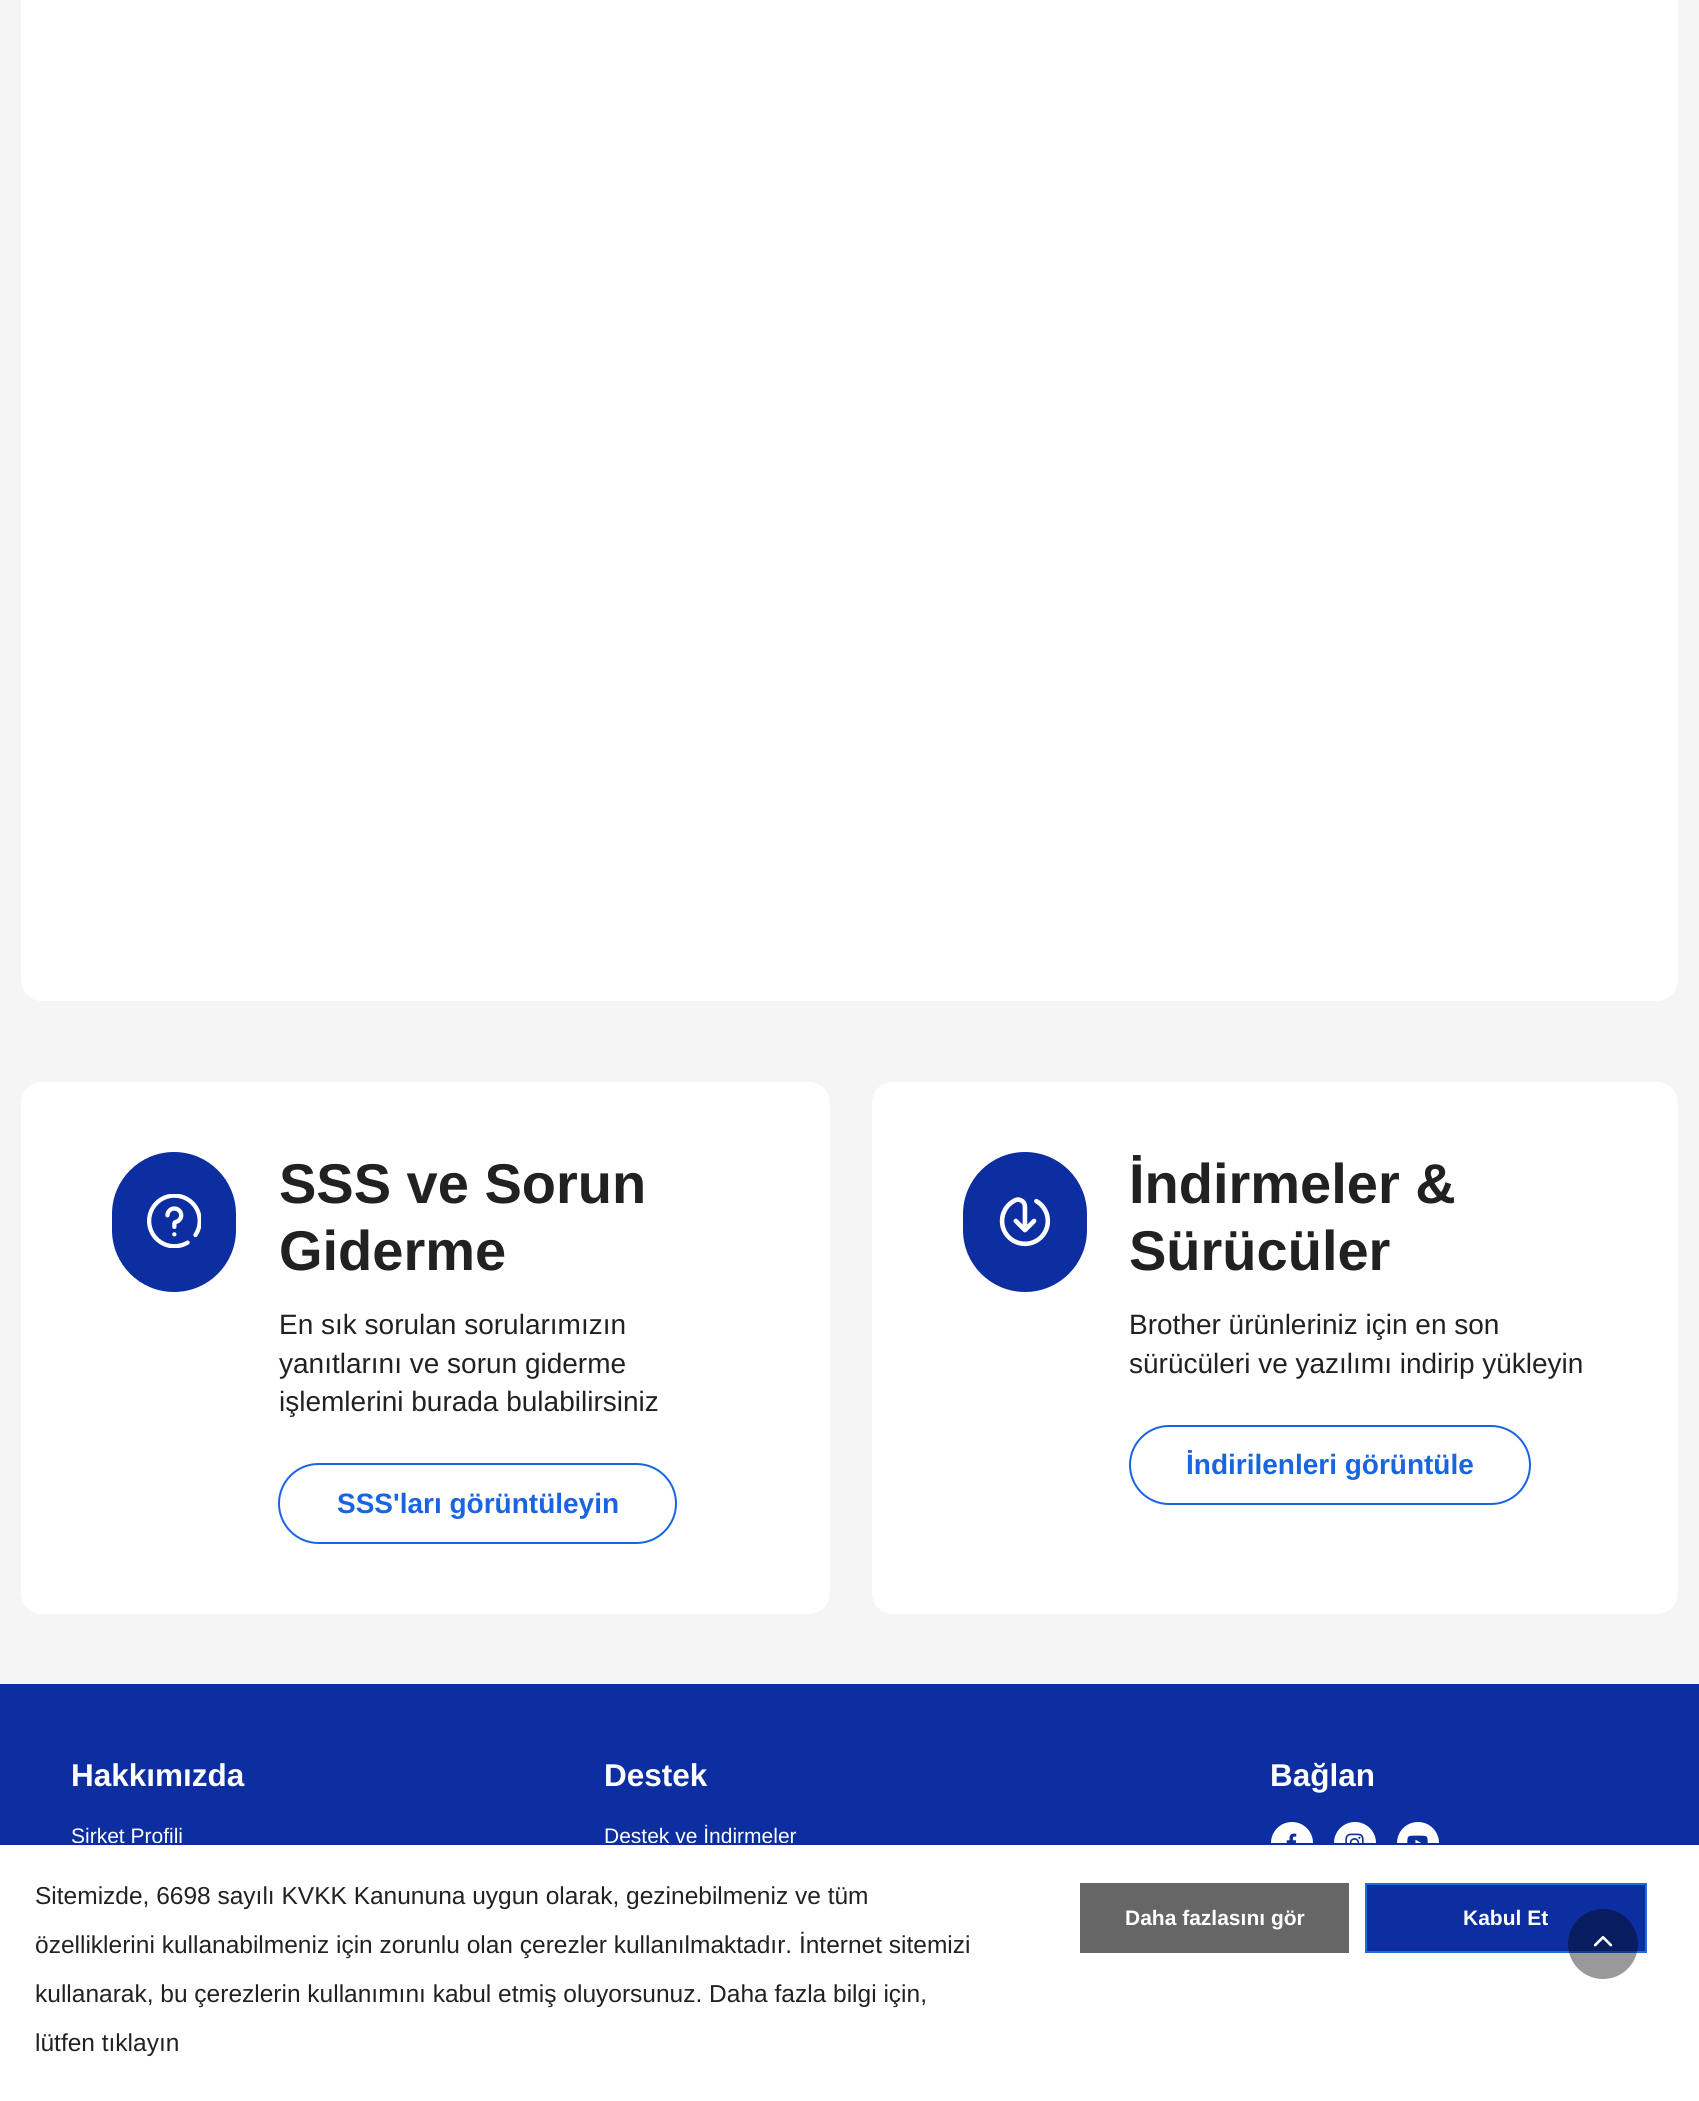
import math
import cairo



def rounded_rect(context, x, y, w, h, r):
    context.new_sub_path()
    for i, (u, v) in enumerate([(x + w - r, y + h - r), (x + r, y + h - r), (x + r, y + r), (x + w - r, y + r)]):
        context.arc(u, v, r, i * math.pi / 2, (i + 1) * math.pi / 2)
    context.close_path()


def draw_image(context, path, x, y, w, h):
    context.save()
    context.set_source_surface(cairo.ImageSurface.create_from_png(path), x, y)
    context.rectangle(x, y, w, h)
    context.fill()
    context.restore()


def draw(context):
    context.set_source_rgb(245 / 255, 245 / 255, 245 / 255)
    context.paint()
    context.set_source_rgb(1, 1, 1)
    rounded_rect(context, 21, -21, 1657, 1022, 21)
    context.fill()
    rounded_rect(context, 21, 1082, 809, 532, 21)
    context.fill()
    context.set_source_rgb(13 / 255, 46 / 255, 160 / 255)
    rounded_rect(context, 112, 1152, 124, 140, 62)
    context.fill()
    draw_image(context, "images/1.png", 147, 1194, 54, 54)
    rounded_rect(context, 279, 1464, 397, 79, 39.5)
    context.set_source_rgb(25 / 255, 101 / 255, 225 / 255)
    context.stroke()
    context.set_source_rgb(1, 1, 1)
    rounded_rect(context, 872, 1082, 806, 532, 21)
    context.fill()
    context.set_source_rgb(13 / 255, 46 / 255, 160 / 255)
    rounded_rect(context, 963, 1152, 124, 140, 62)
    context.fill()
    draw_image(context, "images/2.png", 999, 1197, 52, 50)
    rounded_rect(context, 1130, 1426, 400, 78, 39)
    context.set_source_rgb(25 / 255, 101 / 255, 225 / 255)
    context.stroke()
    context.set_source_rgb(13 / 255, 46 / 255, 160 / 255)
    context.rectangle(0, 1684, 1699, 159)
    context.fill()
    context.set_source_rgb(1, 1, 1)
    context.arc(1292, 1843, 21, 0, 2 * math.pi)
    context.fill()
    draw_image(context, "images/3.png", 1286, 1833, 11, 10)
    context.arc(1355, 1843, 21, 0, 2 * math.pi)
    context.fill()
    draw_image(context, "images/4.png", 1345, 1833, 19, 10)
    context.arc(1418, 1843, 21, 0, 2 * math.pi)
    context.fill()
    draw_image(context, "images/5.png", 1407, 1835, 21, 8)
    context.rectangle(0, 1845, 1699, 256)
    context.fill()
    context.set_source_rgb(13 / 255, 46 / 255, 160 / 255)
    context.rectangle(1366, 1884, 280, 68)
    context.fill_preserve()
    context.set_source_rgb(33 / 255, 105 / 255, 222 / 255)
    context.stroke()
    context.set_source_rgba(0, 0, 0, 0.4)
    context.arc(1603, 1944, 35, 0, 2 * math.pi)
    context.fill()
    draw_image(context, "images/6.png", 1593, 1936, 20, 11)
    context.set_source_rgb(102 / 255, 102 / 255, 102 / 255)
    context.rectangle(1080, 1883, 269, 70)
    context.fill()
    context.select_font_face("Liberation Sans", cairo.FontSlant.NORMAL, cairo.FontWeight.BOLD)
    context.set_font_size(56)
    context.set_source_rgb(33 / 255, 33 / 255, 33 / 255)
    context.move_to(279, 1203)
    context.show_text("SSS ve Sorun")
    context.move_to(279, 1270)
    context.show_text("Giderme")
    context.select_font_face("Liberation Sans")
    context.set_font_size(28)
    context.move_to(279, 1334)
    context.show_text("En sık sorulan sorularımızın")
    context.move_to(279, 1373)
    context.show_text("yanıtlarını ve sorun giderme")
    context.move_to(279, 1411)
    context.show_text("işlemlerini burada bulabilirsiniz")
    context.select_font_face("Liberation Sans", cairo.FontSlant.NORMAL, cairo.FontWeight.BOLD)
    context.set_source_rgb(25 / 255, 101 / 255, 225 / 255)
    context.move_to(337, 1513)
    context.show_text("SSS'ları görüntüleyin")
    context.set_font_size(56)
    context.set_source_rgb(33 / 255, 33 / 255, 33 / 255)
    context.move_to(1129, 1203)
    context.show_text("İndirmeler &")
    context.move_to(1129, 1270)
    context.show_text("Sürücüler")
    context.select_font_face("Liberation Sans")
    context.set_font_size(28)
    context.move_to(1129, 1334)
    context.show_text("Brother ürünleriniz için en son")
    context.move_to(1129, 1373)
    context.show_text("sürücüleri ve yazılımı indirip yükleyin")
    context.select_font_face("Liberation Sans", cairo.FontSlant.NORMAL, cairo.FontWeight.BOLD)
    context.set_source_rgb(25 / 255, 101 / 255, 225 / 255)
    context.move_to(1186, 1474)
    context.show_text("İndirilenleri görüntüle")
    context.set_font_size(31.5)
    context.set_source_rgb(1, 1, 1)
    context.move_to(71, 1786)
    context.show_text("Hakkımızda")
    context.select_font_face("Liberation Sans")
    context.set_font_size(21)
    context.move_to(71, 1843)
    context.show_text("Şirket Profili")
    context.select_font_face("Liberation Sans", cairo.FontSlant.NORMAL, cairo.FontWeight.BOLD)
    context.set_font_size(31.5)
    context.move_to(604, 1786)
    context.show_text("Destek")
    context.select_font_face("Liberation Sans")
    context.set_font_size(21)
    context.move_to(604, 1843)
    context.show_text("Destek ve İndirmeler")
    context.select_font_face("Liberation Sans", cairo.FontSlant.NORMAL, cairo.FontWeight.BOLD)
    context.set_font_size(31.5)
    context.move_to(1270, 1786)
    context.show_text("Bağlan")
    context.set_source_rgb(13 / 255, 46 / 255, 160 / 255)
    context.rectangle(0, 1843, 1699, 2)
    context.fill()
    context.select_font_face("Liberation Sans")
    context.set_font_size(24.5)
    context.set_source_rgb(33 / 255, 33 / 255, 33 / 255)
    context.move_to(35, 1904)
    context.show_text("Sitemizde, 6698 sayılı KVKK Kanununa uygun olarak, gezinebilmeniz ve tüm")
    context.move_to(35, 1953)
    context.show_text("özelliklerini kullanabilmeniz için zorunlu olan çerezler kullanılmaktadır. İnternet sitemizi")
    context.move_to(35, 2002)
    context.show_text("kullanarak, bu çerezlerin kullanımını kabul etmiş oluyorsunuz. Daha fazla bilgi için,")
    context.move_to(35, 2051)
    context.show_text("lütfen tıklayın")
    context.select_font_face("Liberation Sans", cairo.FontSlant.NORMAL, cairo.FontWeight.BOLD)
    context.set_font_size(21)
    context.set_source_rgb(1, 1, 1)
    context.move_to(1125, 1925)
    context.show_text("Daha fazlasını gör")
    context.move_to(1463, 1925)
    context.show_text("Kabul Et")


surface = cairo.ImageSurface(cairo.Format.RGB24, 1699, 2101)
context = cairo.Context(surface)
options = cairo.FontOptions()
options.set_hint_metrics(cairo.HintMetrics.OFF)
options.set_hint_style(cairo.HintStyle.NONE)
context.set_font_options(options)
context.set_miter_limit(4)
draw(context)
surface.write_to_png("out.png")
